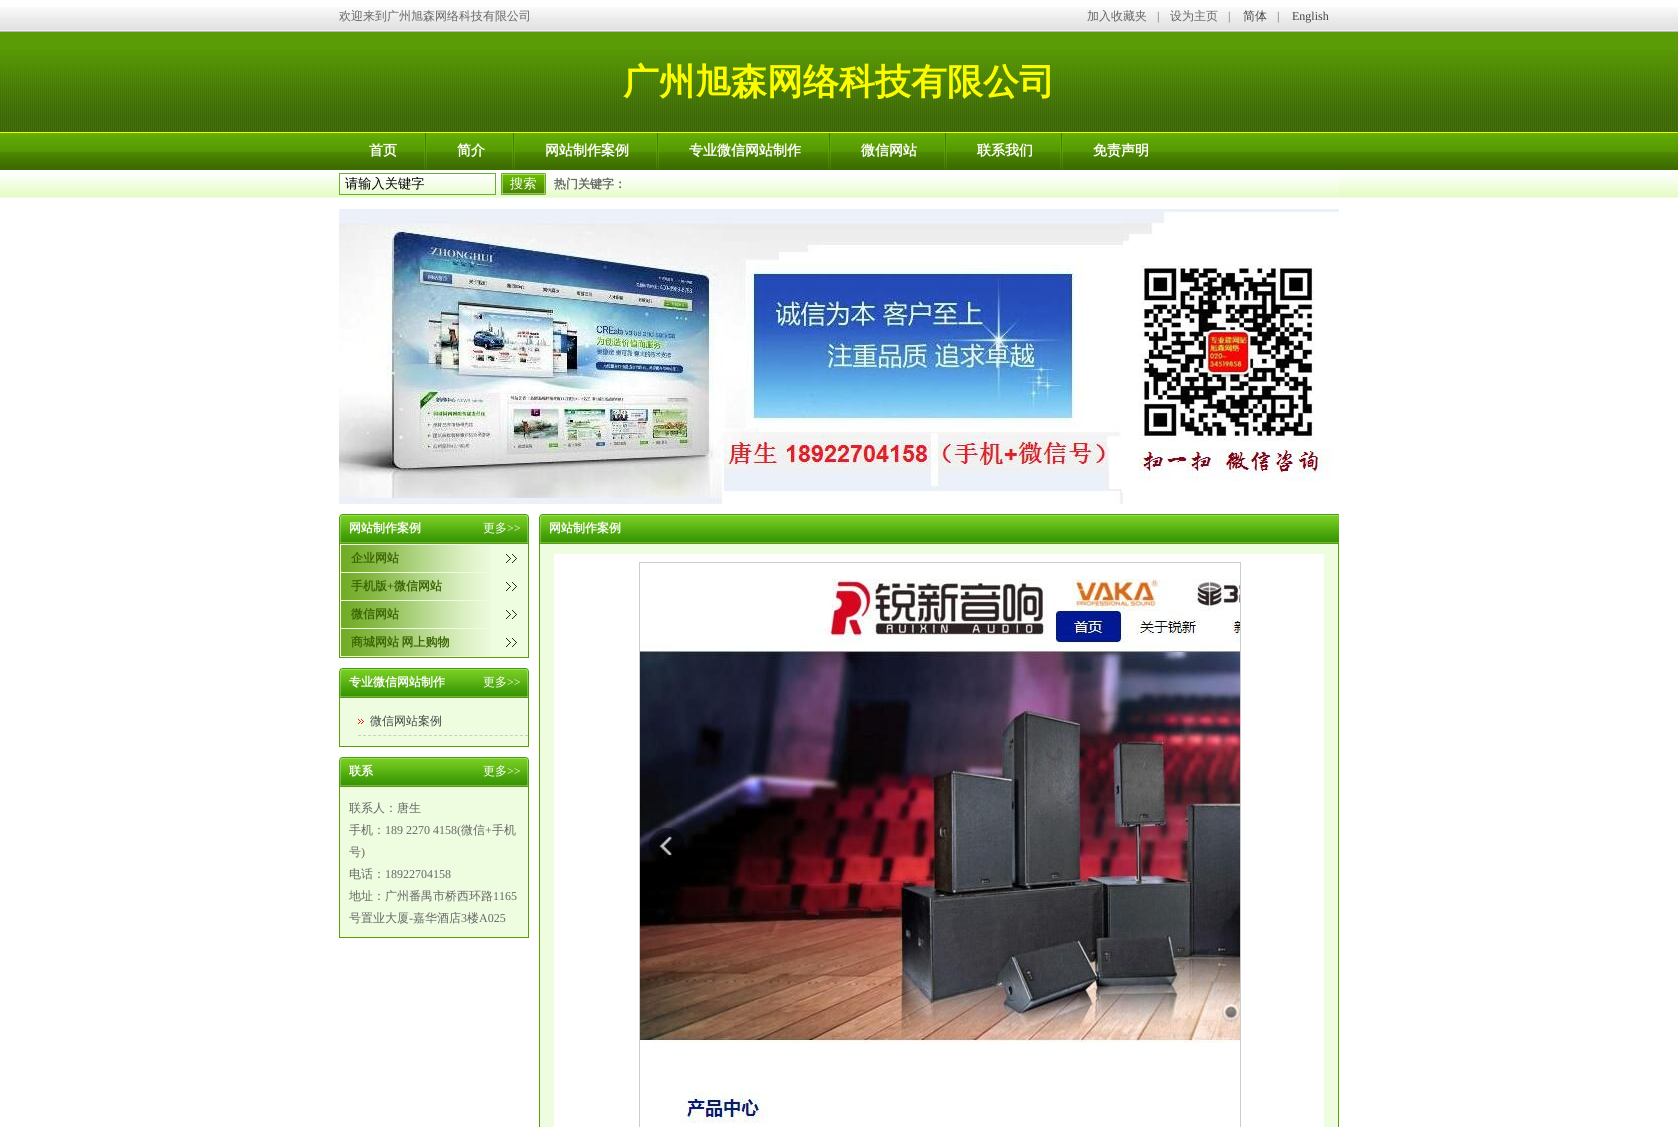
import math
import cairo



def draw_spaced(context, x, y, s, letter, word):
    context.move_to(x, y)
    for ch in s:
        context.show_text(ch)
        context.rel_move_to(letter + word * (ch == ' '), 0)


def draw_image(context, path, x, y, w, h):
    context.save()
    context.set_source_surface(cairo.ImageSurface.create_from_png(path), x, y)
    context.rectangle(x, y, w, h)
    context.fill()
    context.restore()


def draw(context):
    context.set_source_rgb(1, 1, 1)
    context.paint()
    draw_image(context, "images/1.png", 0, 7, 1678, 25)
    context.set_source_rgb(90 / 255, 156 / 255, 5 / 255)
    context.rectangle(0, 32, 1678, 18)
    context.fill()
    draw_image(context, "images/2.png", 0, 50, 1678, 82)
    draw_image(context, "images/3.png", 0, 132, 1678, 38)
    draw_image(context, "images/4.png", 424, 133, 3, 37)
    draw_image(context, "images/4.png", 512, 133, 3, 37)
    draw_image(context, "images/4.png", 656, 133, 3, 37)
    draw_image(context, "images/4.png", 828, 133, 3, 37)
    draw_image(context, "images/4.png", 944, 133, 3, 37)
    draw_image(context, "images/4.png", 1060, 133, 3, 37)
    draw_image(context, "images/5.png", 0, 173, 1678, 25)
    draw_image(context, "images/6.png", 340, 173, 999, 22)
    context.rectangle(339.5, 173.5, 156, 21)
    context.set_source_rgb(102 / 255, 178 / 255, 54 / 255)
    context.set_line_width(1)
    context.stroke()
    draw_image(context, "images/7.png", 501, 173, 45, 22)
    draw_image(context, "images/8.png", 339, 209, 1000, 295)
    draw_image(context, "images/9.png", 343, 514, 182, 29)
    draw_image(context, "images/10.png", 339, 514, 4, 29)
    draw_image(context, "images/11.png", 525, 514, 4, 29)
    context.set_source_rgb(238 / 255, 253 / 255, 224 / 255)
    context.rectangle(339.5, 543.5, 189, 114)
    context.fill_preserve()
    context.set_source_rgb(90 / 255, 157 / 255, 7 / 255)
    context.stroke()
    draw_image(context, "images/12.png", 341, 545, 150, 27)
    draw_image(context, "images/13.png", 506, 554, 11, 9)
    draw_image(context, "images/12.png", 341, 573, 150, 27)
    draw_image(context, "images/13.png", 506, 582, 11, 9)
    draw_image(context, "images/12.png", 341, 601, 150, 27)
    draw_image(context, "images/13.png", 506, 610, 11, 9)
    draw_image(context, "images/12.png", 341, 629, 150, 27)
    draw_image(context, "images/13.png", 506, 638, 11, 9)
    draw_image(context, "images/9.png", 343, 668, 182, 29)
    draw_image(context, "images/10.png", 339, 668, 4, 29)
    draw_image(context, "images/11.png", 525, 668, 4, 29)
    context.set_source_rgb(238 / 255, 253 / 255, 224 / 255)
    context.rectangle(339.5, 697.5, 189, 49)
    context.fill_preserve()
    context.set_source_rgb(90 / 255, 157 / 255, 7 / 255)
    context.stroke()
    draw_image(context, "images/14.png", 358, 719, 6, 5)
    context.new_path()
    context.move_to(358, 735.5)
    context.line_to(528, 735.5)
    context.set_source_rgb(204 / 255, 204 / 255, 204 / 255)
    context.set_dash([3, 2.06])
    context.stroke()
    draw_image(context, "images/9.png", 343, 757, 182, 29)
    draw_image(context, "images/10.png", 339, 757, 4, 29)
    draw_image(context, "images/11.png", 525, 757, 4, 29)
    context.set_source_rgb(238 / 255, 253 / 255, 224 / 255)
    context.rectangle(339.5, 786.5, 189, 151)
    context.fill_preserve()
    context.set_source_rgb(90 / 255, 157 / 255, 7 / 255)
    context.set_dash([])
    context.stroke()
    draw_image(context, "images/15.png", 543, 514, 796, 29)
    draw_image(context, "images/10.png", 539, 514, 4, 29)
    context.set_source_rgb(238 / 255, 253 / 255, 224 / 255)
    context.rectangle(539.5, 543.5, 799, 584)
    context.fill_preserve()
    context.set_source_rgb(90 / 255, 157 / 255, 7 / 255)
    context.stroke()
    context.set_source_rgb(1, 1, 1)
    context.rectangle(554, 554, 770, 573)
    context.fill()
    context.rectangle(639.5, 562.5, 601, 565)
    context.set_source_rgb(204 / 255, 204 / 255, 204 / 255)
    context.stroke()
    draw_image(context, "images/16.png", 640, 578, 600, 546)
    context.select_font_face("WenQuanYi Zen Hei Medium")
    context.set_font_size(12)
    context.set_source_rgb(102 / 255, 102 / 255, 102 / 255)
    context.move_to(339, 20)
    context.show_text("欢迎来到广州旭森网络科技有限公司")
    context.move_to(1087, 20)
    context.show_text("加入收藏夹")
    context.select_font_face("Liberation Serif")
    context.move_to(1157, 20)
    context.show_text("|")
    context.select_font_face("WenQuanYi Zen Hei Medium")
    context.move_to(1170, 20)
    context.show_text("设为主页")
    context.select_font_face("Liberation Serif")
    context.move_to(1228, 20)
    context.show_text("|")
    context.select_font_face("WenQuanYi Zen Hei Medium")
    context.set_source_rgb(68 / 255, 68 / 255, 68 / 255)
    context.move_to(1243, 20)
    context.show_text("简体")
    context.select_font_face("Liberation Serif")
    context.set_source_rgb(102 / 255, 102 / 255, 102 / 255)
    context.move_to(1277, 20)
    context.show_text("|")
    context.set_source_rgb(68 / 255, 68 / 255, 68 / 255)
    context.move_to(1292, 20)
    context.show_text("English")
    context.select_font_face("WenQuanYi Zen Hei", cairo.FontSlant.NORMAL, cairo.FontWeight.BOLD)
    context.set_font_size(36)
    context.set_source_rgb(252 / 255, 251 / 255, 1 / 255)
    context.move_to(623, 94)
    context.show_text("广州旭森网络科技有限公司")
    context.set_font_size(14)
    context.set_source_rgb(1, 1, 1)
    context.move_to(369, 155)
    context.show_text("首页")
    context.move_to(457, 155)
    context.show_text("简介")
    context.move_to(545, 155)
    context.show_text("网站制作案例")
    context.move_to(689, 155)
    context.show_text("专业微信网站制作")
    context.move_to(861, 155)
    context.show_text("微信网站")
    context.move_to(977, 155)
    context.show_text("联系我们")
    context.move_to(1093, 155)
    context.show_text("免责声明")
    context.select_font_face("WenQuanYi Zen Hei Medium")
    context.set_font_size(13.25)
    context.set_source_rgb(0, 0, 0)
    context.move_to(345, 188)
    context.show_text("请输入关键字")
    context.set_source_rgb(1, 1, 1)
    context.move_to(510, 188)
    context.show_text("搜索")
    context.select_font_face("WenQuanYi Zen Hei", cairo.FontSlant.NORMAL, cairo.FontWeight.BOLD)
    context.set_font_size(12)
    context.set_source_rgb(102 / 255, 102 / 255, 102 / 255)
    context.move_to(554, 188)
    context.show_text("热门关键字：")
    context.set_source_rgb(1, 1, 1)
    context.move_to(349, 532)
    context.show_text("网站制作案例")
    context.select_font_face("WenQuanYi Zen Hei Medium")
    context.move_to(483, 532)
    context.show_text("更多")
    context.select_font_face("Liberation Serif")
    context.move_to(507, 532)
    context.show_text(">>")
    context.select_font_face("WenQuanYi Zen Hei", cairo.FontSlant.NORMAL, cairo.FontWeight.BOLD)
    context.set_source_rgb(59 / 255, 102 / 255, 3 / 255)
    context.move_to(351, 562)
    context.show_text("企业网站")
    context.move_to(351, 590)
    context.show_text("手机版")
    context.select_font_face("Liberation Serif", cairo.FontSlant.NORMAL, cairo.FontWeight.BOLD)
    context.move_to(387, 590)
    context.show_text("+")
    context.select_font_face("WenQuanYi Zen Hei", cairo.FontSlant.NORMAL, cairo.FontWeight.BOLD)
    context.move_to(394, 590)
    context.show_text("微信网站")
    context.move_to(351, 618)
    context.show_text("微信网站")
    draw_spaced(context, 351, 646, "商城网站 网上购物", 0, -1)
    context.set_source_rgb(1, 1, 1)
    context.move_to(349, 686)
    context.show_text("专业微信网站制作")
    context.select_font_face("WenQuanYi Zen Hei Medium")
    context.move_to(483, 686)
    context.show_text("更多")
    context.select_font_face("Liberation Serif")
    context.move_to(507, 686)
    context.show_text(">>")
    context.select_font_face("WenQuanYi Zen Hei Medium")
    context.set_source_rgb(68 / 255, 68 / 255, 68 / 255)
    context.move_to(370, 725)
    context.show_text("微信网站案例")
    context.select_font_face("WenQuanYi Zen Hei", cairo.FontSlant.NORMAL, cairo.FontWeight.BOLD)
    context.set_source_rgb(1, 1, 1)
    context.move_to(349, 775)
    context.show_text("联系")
    context.select_font_face("WenQuanYi Zen Hei Medium")
    context.move_to(483, 775)
    context.show_text("更多")
    context.select_font_face("Liberation Serif")
    context.move_to(507, 775)
    context.show_text(">>")
    context.select_font_face("WenQuanYi Zen Hei Medium")
    context.set_source_rgb(102 / 255, 102 / 255, 102 / 255)
    context.move_to(349, 812)
    context.show_text("联系人：唐生")
    context.move_to(349, 834)
    context.show_text("手机：")
    context.select_font_face("Liberation Serif")
    context.move_to(385, 834)
    context.show_text("189 2270 4158(")
    context.select_font_face("WenQuanYi Zen Hei Medium")
    context.move_to(461, 834)
    context.show_text("微信")
    context.select_font_face("Liberation Serif")
    context.move_to(485, 834)
    context.show_text("+")
    context.select_font_face("WenQuanYi Zen Hei Medium")
    context.move_to(492, 834)
    context.show_text("手机")
    context.move_to(349, 856)
    context.show_text("号")
    context.select_font_face("Liberation Serif")
    context.move_to(361, 856)
    context.show_text(")")
    context.select_font_face("WenQuanYi Zen Hei Medium")
    context.move_to(349, 878)
    context.show_text("电话：")
    context.select_font_face("Liberation Serif")
    context.move_to(385, 878)
    context.show_text("18922704158")
    context.select_font_face("WenQuanYi Zen Hei Medium")
    context.move_to(349, 900)
    context.show_text("地址：广州番禺市桥西环路")
    context.select_font_face("Liberation Serif")
    context.move_to(493, 900)
    context.show_text("1165")
    context.select_font_face("WenQuanYi Zen Hei Medium")
    context.move_to(349, 922)
    context.show_text("号置业大厦")
    context.select_font_face("Liberation Serif")
    context.move_to(409, 922)
    context.show_text("-")
    context.select_font_face("WenQuanYi Zen Hei Medium")
    context.move_to(413, 922)
    context.show_text("嘉华酒店")
    context.select_font_face("Liberation Serif")
    context.move_to(461, 922)
    context.show_text("3")
    context.select_font_face("WenQuanYi Zen Hei Medium")
    context.move_to(467, 922)
    context.show_text("楼")
    context.select_font_face("Liberation Serif")
    context.move_to(479, 922)
    context.show_text("A025")
    context.select_font_face("WenQuanYi Zen Hei", cairo.FontSlant.NORMAL, cairo.FontWeight.BOLD)
    context.set_source_rgb(1, 1, 1)
    context.move_to(549, 532)
    context.show_text("网站制作案例")


surface = cairo.ImageSurface(cairo.Format.RGB24, 1678, 1127)
context = cairo.Context(surface)
options = cairo.FontOptions()
options.set_hint_metrics(cairo.HintMetrics.OFF)
options.set_hint_style(cairo.HintStyle.NONE)
context.set_font_options(options)
context.set_miter_limit(4)
draw(context)
surface.write_to_png("out.png")
